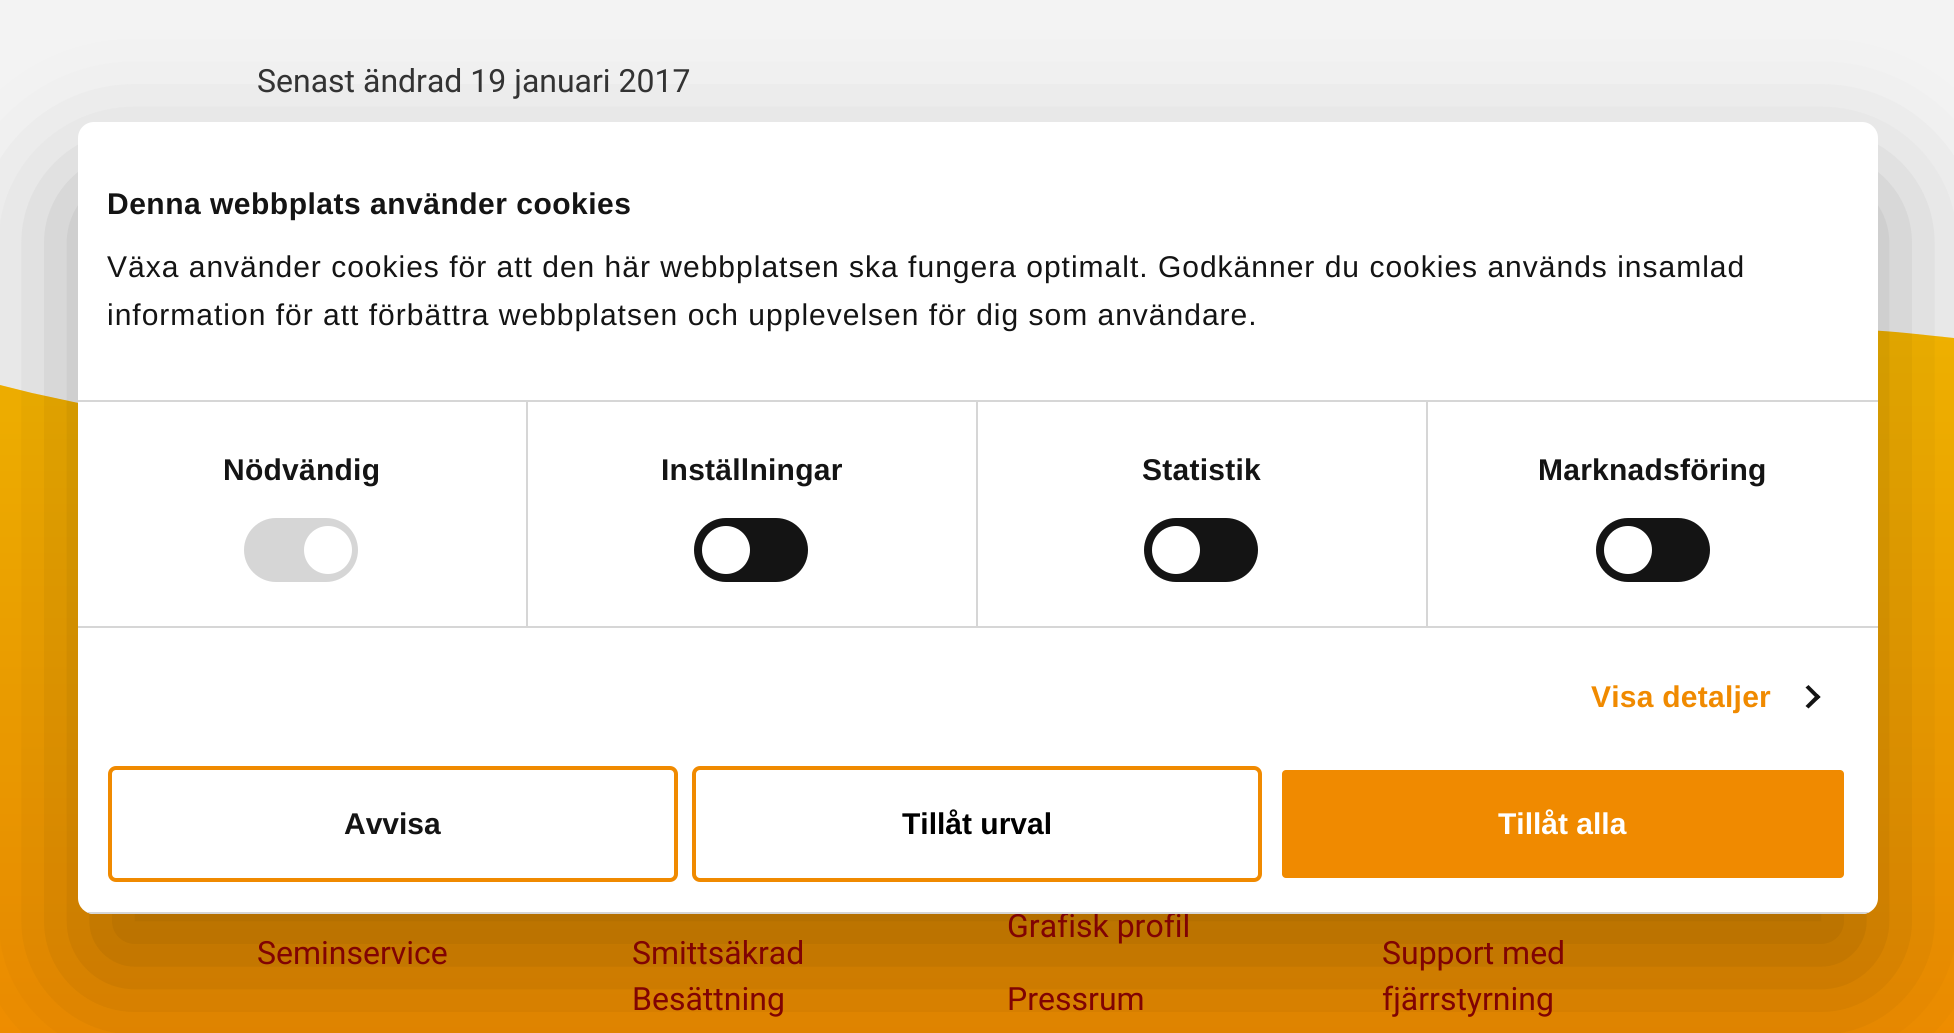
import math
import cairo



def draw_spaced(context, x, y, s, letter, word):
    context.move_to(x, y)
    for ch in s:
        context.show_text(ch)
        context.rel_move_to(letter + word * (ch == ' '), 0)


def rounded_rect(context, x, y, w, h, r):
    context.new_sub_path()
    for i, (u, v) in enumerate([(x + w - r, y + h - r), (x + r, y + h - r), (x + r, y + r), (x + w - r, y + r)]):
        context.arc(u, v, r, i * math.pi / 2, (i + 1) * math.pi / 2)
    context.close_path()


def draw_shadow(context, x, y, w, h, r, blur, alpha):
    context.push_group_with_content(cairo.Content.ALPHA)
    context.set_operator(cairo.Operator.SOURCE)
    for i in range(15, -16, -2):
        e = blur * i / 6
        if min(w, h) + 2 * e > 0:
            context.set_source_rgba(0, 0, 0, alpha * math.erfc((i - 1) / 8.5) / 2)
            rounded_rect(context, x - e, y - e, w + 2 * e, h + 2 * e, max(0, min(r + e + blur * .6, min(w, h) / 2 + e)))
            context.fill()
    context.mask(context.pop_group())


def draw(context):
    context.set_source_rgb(243 / 255, 243 / 255, 243 / 255)
    context.paint()
    gradient = cairo.LinearGradient(977, 316, 977, 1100)
    gradient.add_color_stop_rgba(0, 250 / 255, 186 / 255, 0, 1)
    gradient.add_color_stop_rgba(1, 240 / 255, 138 / 255, 0, 1)
    context.set_source(gradient)
    context.rectangle(0, 330, 1954, 703)
    context.fill()
    context.set_source_rgb(243 / 255, 243 / 255, 243 / 255)
    context.new_path()
    context.move_to(1954, 338)
    context.curve_to(1924, 335, 1894, 331, 1864, 330)
    context.curve_to(1837, 329, 1810, 330, 1784, 330)
    context.line_to(1729, 332)
    context.curve_to(1658, 336, 1587, 343, 1517, 352)
    context.curve_to(1420, 364, 1323, 377, 1225, 390)
    context.curve_to(1104, 406, 983, 421, 861, 432)
    context.curve_to(774, 439, 687, 445, 599, 447)
    context.line_to(516, 447)
    context.curve_to(421, 446, 325, 442, 231, 430)
    context.curve_to(181, 423, 132, 414, 83, 404)
    context.line_to(32, 393)
    context.line_to(0, 385)
    context.line_to(0, 316)
    context.line_to(1954, 316)
    context.close_path()
    context.fill()
    context.set_source_rgb(0, 0, 0)
    draw_shadow(context, 78, 186, 1800, 792, 16, 68, 0.3)
    context.select_font_face("Roboto")
    context.set_font_size(32)
    context.set_source_rgb(51 / 255, 51 / 255, 51 / 255)
    context.move_to(257, 92)
    context.show_text("Senast ändrad 19 januari 2017")
    context.set_source_rgb(128 / 255, 3 / 255, 3 / 255)
    context.move_to(257, 964)
    context.show_text("Seminservice")
    context.move_to(632, 964)
    context.show_text("Smittsäkrad")
    context.move_to(632, 1010)
    context.show_text("Besättning")
    context.move_to(1007, 937)
    context.show_text("Grafisk profil")
    context.set_source_rgb(1, 1, 1)
    rounded_rect(context, 78, 122, 1800, 792, 16)
    context.fill()
    context.set_source_rgb(240 / 255, 138 / 255, 0)
    rounded_rect(context, 1280, 768, 566, 112, 6)
    context.fill_preserve()
    context.set_source_rgb(1, 1, 1)
    context.set_line_width(4)
    context.stroke()
    context.select_font_face("Liberation Sans", cairo.FontSlant.NORMAL, cairo.FontWeight.BOLD)
    context.set_font_size(30)
    context.move_to(1498, 834)
    context.show_text("Tillåt alla")
    rounded_rect(context, 694, 768, 566, 112, 6)
    context.set_source_rgb(240 / 255, 138 / 255, 0)
    context.stroke()
    context.set_source_rgb(0, 0, 0)
    context.move_to(902, 834)
    context.show_text("Tillåt urval")
    rounded_rect(context, 110, 768, 566, 112, 6)
    context.set_source_rgb(240 / 255, 138 / 255, 0)
    context.stroke()
    context.set_source_rgb(20 / 255, 20 / 255, 20 / 255)
    context.move_to(344, 834)
    context.show_text("Avvisa")
    context.save()
    rounded_rect(context, 78, 122, 1800, 792, 16)
    context.clip()
    context.set_source_rgb(214 / 255, 214 / 255, 214 / 255)
    context.rectangle(78, 912, 1800, 2)
    context.fill()
    context.restore()
    context.new_path()
    context.move_to(1808.5, 685)
    context.line_to(1820.5, 697)
    context.line_to(1817.5, 699.5)
    context.line_to(1805.5, 687.5)
    context.close_path()
    context.fill()
    context.new_path()
    context.move_to(1817.5, 694)
    context.line_to(1820.5, 697)
    context.line_to(1808.5, 708.5)
    context.line_to(1805.5, 706)
    context.close_path()
    context.fill()
    rounded_rect(context, 1596, 518, 114, 64, 32)
    context.fill()
    context.set_source_rgb(1, 1, 1)
    context.arc(1628, 550, 24, 0, 2 * math.pi)
    context.fill()
    context.set_source_rgb(20 / 255, 20 / 255, 20 / 255)
    rounded_rect(context, 1144, 518, 114, 64, 32)
    context.fill()
    context.set_source_rgb(1, 1, 1)
    context.arc(1176, 550, 24, 0, 2 * math.pi)
    context.fill()
    context.set_source_rgb(20 / 255, 20 / 255, 20 / 255)
    rounded_rect(context, 694, 518, 114, 64, 32)
    context.fill()
    context.set_source_rgb(1, 1, 1)
    context.arc(726, 550, 24, 0, 2 * math.pi)
    context.fill()
    context.set_source_rgb(214 / 255, 214 / 255, 214 / 255)
    rounded_rect(context, 244, 518, 114, 64, 32)
    context.fill()
    context.set_source_rgb(1, 1, 1)
    context.arc(328, 550, 24, 0, 2 * math.pi)
    context.fill()
    context.select_font_face("Liberation Sans")
    context.set_source_rgb(20 / 255, 20 / 255, 20 / 255)
    draw_spaced(context, 107, 325, "information för att förbättra webbplatsen och upplevelsen för dig som användare.", 1, 0)
    draw_spaced(context, 107, 277, "Växa använder cookies för att den här webbplatsen ska fungera optimalt. Godkänner du cookies används insamlad", 1, 0)
    context.select_font_face("Liberation Sans", cairo.FontSlant.NORMAL, cairo.FontWeight.BOLD)
    draw_spaced(context, 107, 214, "Denna webbplats använder cookies", 0.5, 0)
    context.set_source_rgb(214 / 255, 214 / 255, 214 / 255)
    context.rectangle(78, 400, 1800, 2)
    context.fill()
    context.set_source_rgb(240 / 255, 138 / 255, 0)
    draw_spaced(context, 1591, 707, "Visa detaljer", 0.25, 0)
    context.set_source_rgb(20 / 255, 20 / 255, 20 / 255)
    draw_spaced(context, 1538, 480, "Marknadsföring", 0.25, 0)
    draw_spaced(context, 1142, 480, "Statistik", 0.25, 0)
    context.set_source_rgb(214 / 255, 214 / 255, 214 / 255)
    context.rectangle(1426, 402, 2, 224)
    context.fill()
    context.set_source_rgb(20 / 255, 20 / 255, 20 / 255)
    draw_spaced(context, 661, 480, "Inställningar", 0.25, 0)
    context.set_source_rgb(214 / 255, 214 / 255, 214 / 255)
    context.rectangle(976, 402, 2, 224)
    context.fill()
    context.set_source_rgb(20 / 255, 20 / 255, 20 / 255)
    draw_spaced(context, 223, 480, "Nödvändig", 0.25, 0)
    context.set_source_rgb(214 / 255, 214 / 255, 214 / 255)
    context.rectangle(526, 402, 2, 224)
    context.fill()
    context.rectangle(78, 626, 1800, 2)
    context.fill()
    context.select_font_face("Roboto")
    context.set_font_size(32)
    context.set_source_rgb(128 / 255, 3 / 255, 3 / 255)
    context.move_to(1007, 1010)
    context.show_text("Pressrum")
    context.move_to(1382, 964)
    context.show_text("Support med")
    context.move_to(1382, 1010)
    context.show_text("fjärrstyrning")


surface = cairo.ImageSurface(cairo.Format.RGB24, 1954, 1033)
context = cairo.Context(surface)
options = cairo.FontOptions()
options.set_hint_metrics(cairo.HintMetrics.OFF)
options.set_hint_style(cairo.HintStyle.NONE)
context.set_font_options(options)
context.set_miter_limit(4)
draw(context)
surface.write_to_png("out.png")
